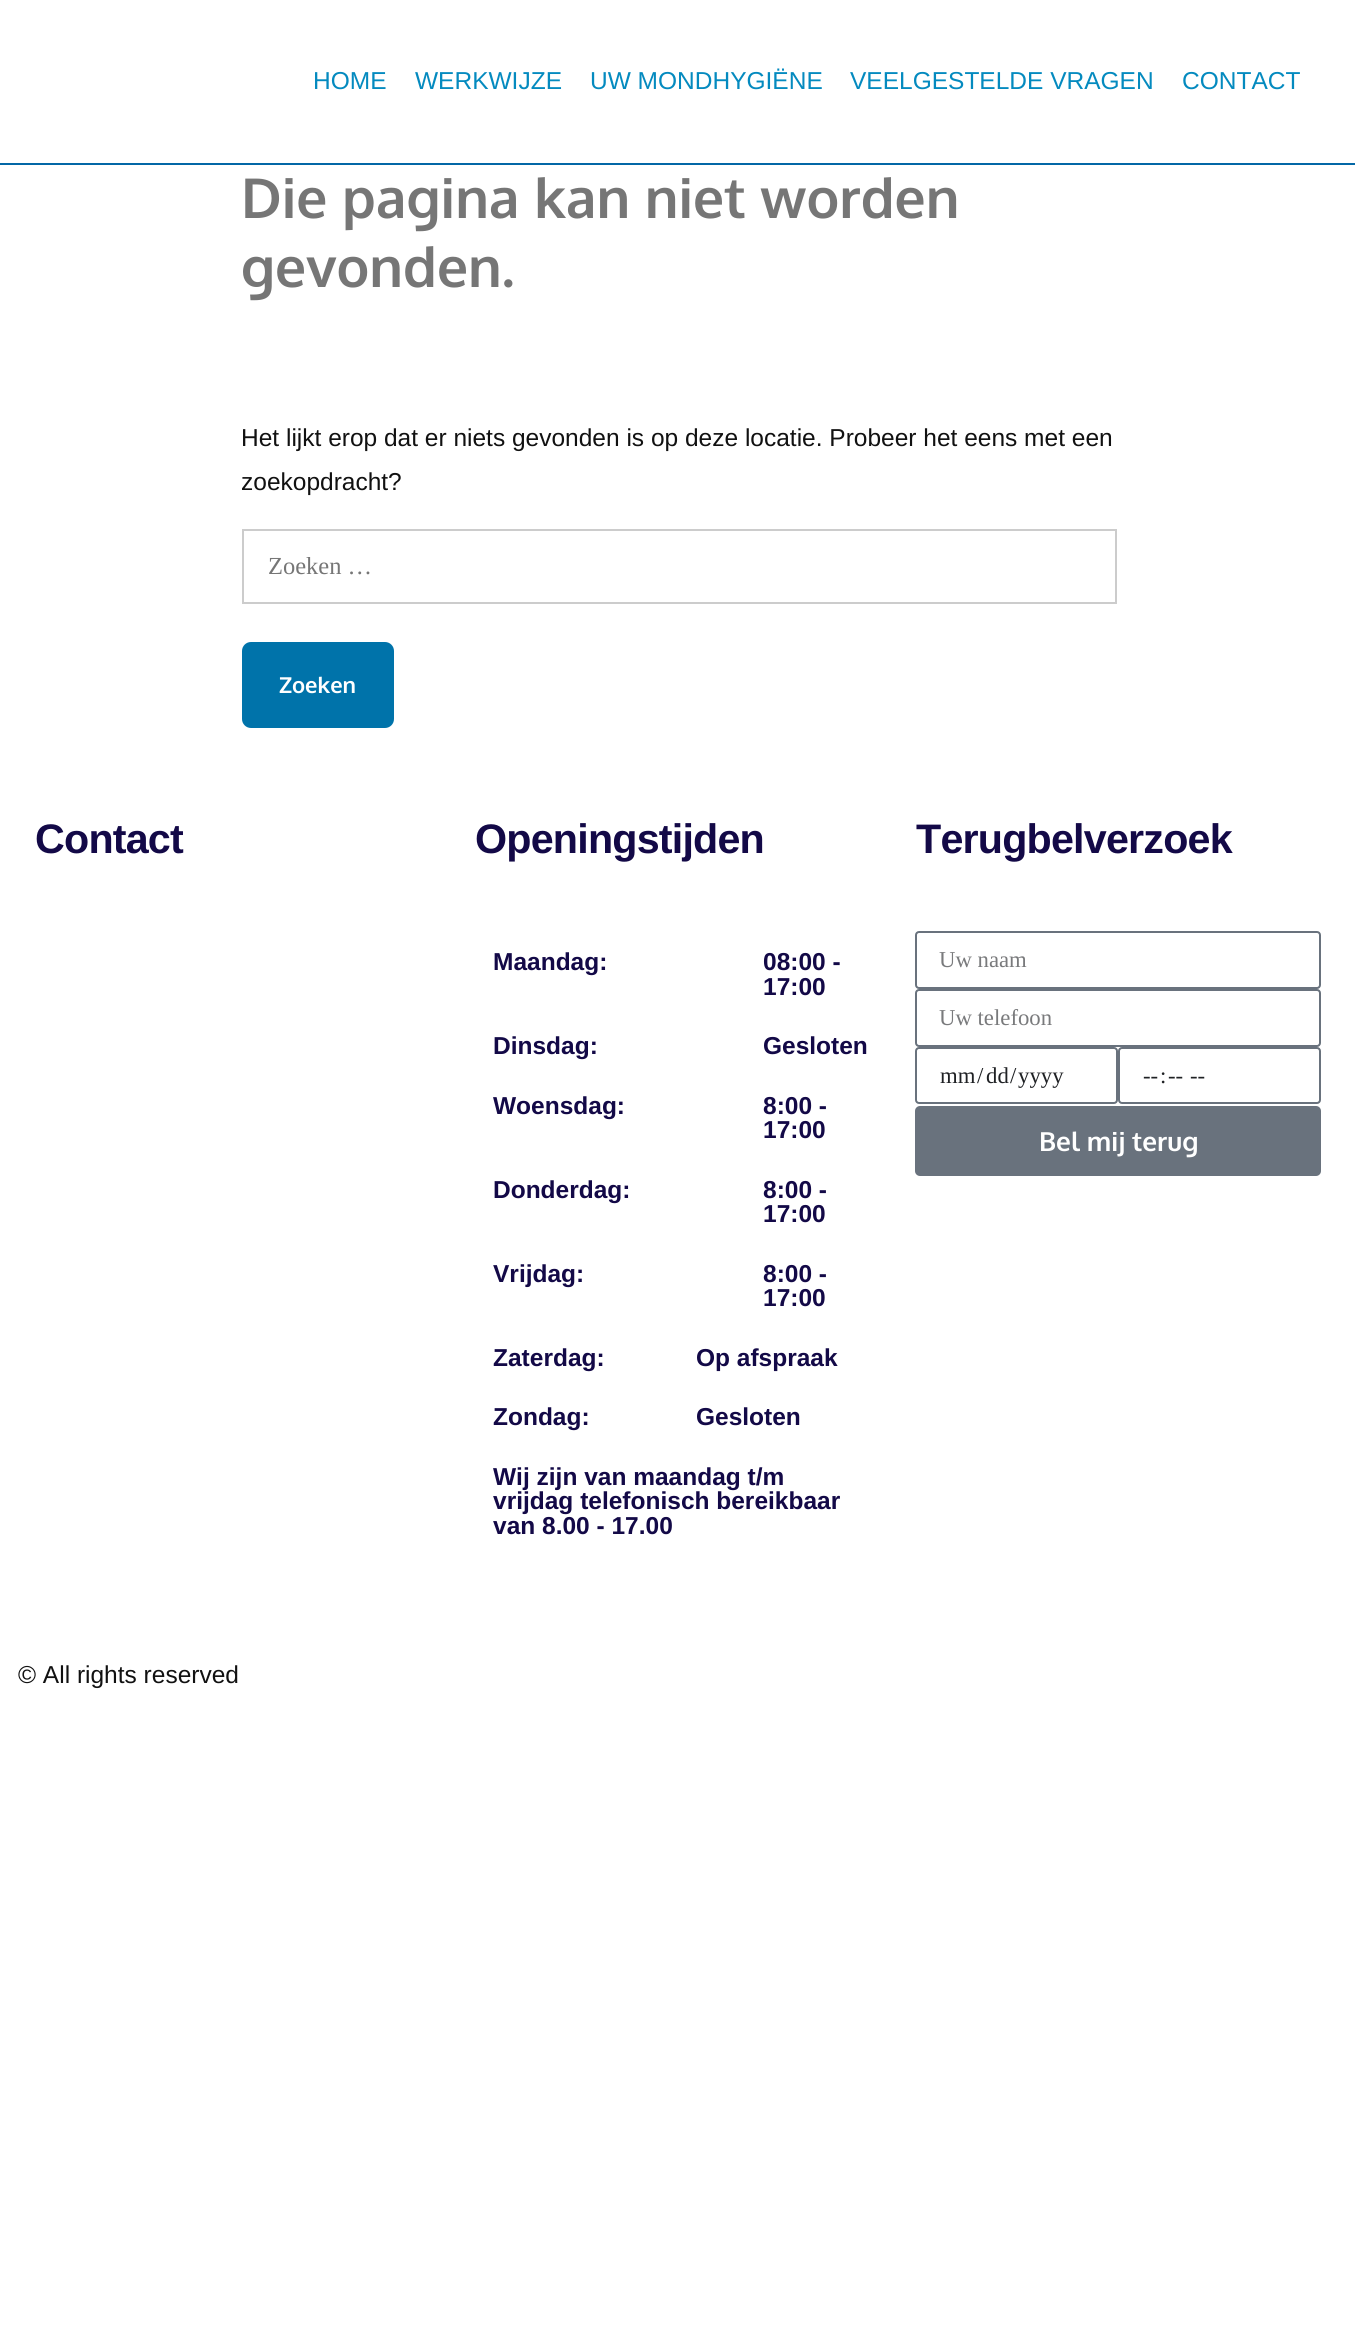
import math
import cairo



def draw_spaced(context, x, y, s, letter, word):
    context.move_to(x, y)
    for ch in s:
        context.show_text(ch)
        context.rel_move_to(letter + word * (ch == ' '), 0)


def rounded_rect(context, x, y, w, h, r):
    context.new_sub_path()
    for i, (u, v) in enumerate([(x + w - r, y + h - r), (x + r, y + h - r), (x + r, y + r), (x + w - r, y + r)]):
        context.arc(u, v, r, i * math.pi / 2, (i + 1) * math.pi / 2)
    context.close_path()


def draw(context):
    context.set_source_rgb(1, 1, 1)
    context.paint()
    context.set_source_rgb(3 / 255, 103 / 255, 166 / 255)
    context.rectangle(0, 163, 1355, 2)
    context.fill()
    context.rectangle(243, 530, 873, 73)
    context.set_source_rgb(204 / 255, 204 / 255, 204 / 255)
    context.stroke()
    context.set_source_rgb(0, 115 / 255, 170 / 255)
    rounded_rect(context, 242, 642, 152, 86, 9)
    context.fill()
    rounded_rect(context, 916, 932, 404, 56, 3)
    context.set_source_rgb(105 / 255, 114 / 255, 125 / 255)
    context.stroke()
    rounded_rect(context, 916, 990, 404, 56, 3)
    context.stroke()
    rounded_rect(context, 916, 1048, 201, 55, 3)
    context.stroke()
    rounded_rect(context, 1119, 1048, 201, 55, 3)
    context.stroke()
    rounded_rect(context, 915, 1106, 406, 70, 5)
    context.fill()
    context.select_font_face("Liberation Sans")
    context.set_font_size(24.5)
    context.set_source_rgb(4 / 255, 138 / 255, 191 / 255)
    context.move_to(313, 89)
    context.show_text("HOME")
    context.move_to(415, 89)
    context.show_text("WERKWIJZE")
    context.move_to(590, 89)
    context.show_text("UW MONDHYGIËNE")
    context.move_to(850, 89)
    context.show_text("VEELGESTELDE VRAGEN")
    context.move_to(1182, 89)
    context.show_text("CONTACT")
    context.select_font_face("Oxygen", cairo.FontSlant.NORMAL, cairo.FontWeight.BOLD)
    context.set_font_size(55.1)
    context.set_source_rgb(118 / 255, 118 / 255, 118 / 255)
    context.move_to(241, 218)
    context.show_text("Die pagina kan niet worden")
    context.move_to(241, 287)
    context.show_text("gevonden.")
    context.select_font_face("Liberation Sans")
    context.set_font_size(24.5)
    context.set_source_rgb(17 / 255, 17 / 255, 17 / 255)
    context.move_to(241, 446)
    context.show_text("Het lijkt erop dat er niets gevonden is op deze locatie. Probeer het eens met een")
    context.move_to(241, 490)
    context.show_text("zoekopdracht?")
    context.select_font_face("Liberation Serif")
    context.set_source_rgb(118 / 255, 118 / 255, 118 / 255)
    context.move_to(268, 574)
    context.show_text("Zoeken …")
    context.select_font_face("Oxygen", cairo.FontSlant.NORMAL, cairo.FontWeight.BOLD)
    context.set_font_size(22)
    context.set_source_rgb(1, 1, 1)
    context.move_to(279, 693)
    context.show_text("Zoeken")
    context.select_font_face("Liberation Sans", cairo.FontSlant.NORMAL, cairo.FontWeight.BOLD)
    context.set_font_size(41.25)
    context.set_source_rgb(19 / 255, 9 / 255, 71 / 255)
    draw_spaced(context, 35, 853, "Contact", -0.8, 0)
    draw_spaced(context, 475, 853, "Openingstijden", -0.8, 0)
    context.set_font_size(24.5)
    context.move_to(493, 970)
    context.show_text("Maandag:")
    context.move_to(763, 970)
    context.show_text("08:00 -")
    context.move_to(763, 995)
    context.show_text("17:00")
    context.move_to(493, 1054)
    context.show_text("Dinsdag:")
    context.move_to(763, 1054)
    context.show_text("Gesloten")
    context.move_to(493, 1114)
    context.show_text("Woensdag:")
    context.move_to(763, 1114)
    context.show_text("8:00 -")
    context.move_to(763, 1138)
    context.show_text("17:00")
    context.move_to(493, 1198)
    context.show_text("Donderdag:")
    context.move_to(763, 1198)
    context.show_text("8:00 -")
    context.move_to(763, 1222)
    context.show_text("17:00")
    context.move_to(493, 1282)
    context.show_text("Vrijdag:")
    context.move_to(763, 1282)
    context.show_text("8:00 -")
    context.move_to(763, 1306)
    context.show_text("17:00")
    context.move_to(493, 1366)
    context.show_text("Zaterdag:")
    context.move_to(696, 1366)
    context.show_text("Op afspraak")
    context.move_to(493, 1425)
    context.show_text("Zondag:")
    context.move_to(696, 1425)
    context.show_text("Gesloten")
    context.move_to(493, 1485)
    context.show_text("Wij zijn van maandag t/m")
    context.move_to(493, 1509)
    context.show_text("vrijdag telefonisch bereikbaar")
    context.move_to(493, 1534)
    context.show_text("van 8.00 - 17.00")
    context.set_font_size(41.25)
    draw_spaced(context, 916, 853, "Terugbelverzoek", -0.8, 0)
    context.select_font_face("Liberation Serif")
    context.set_font_size(22.75)
    context.set_source_rgb(121 / 255, 122 / 255, 124 / 255)
    context.move_to(939, 967)
    context.show_text("Uw naam")
    context.move_to(939, 1025)
    context.show_text("Uw telefoon")
    context.set_source_rgb(31 / 255, 33 / 255, 36 / 255)
    context.move_to(940, 1083)
    context.show_text("mm")
    context.move_to(977, 1083)
    context.show_text("/")
    context.move_to(986, 1083)
    context.show_text("dd")
    context.move_to(1010, 1083)
    context.show_text("/")
    context.move_to(1018, 1083)
    context.show_text("yyyy")
    context.move_to(1143, 1083)
    context.show_text("--")
    context.move_to(1160, 1083)
    context.show_text(":")
    context.move_to(1168, 1083)
    context.show_text("--")
    context.move_to(1190, 1083)
    context.show_text("--")
    context.select_font_face("Oxygen", cairo.FontSlant.NORMAL, cairo.FontWeight.BOLD)
    context.set_font_size(26.25)
    context.set_source_rgb(1, 1, 1)
    context.move_to(1039, 1151)
    context.show_text("Bel mij terug")
    context.select_font_face("Liberation Sans")
    context.set_font_size(24.5)
    context.set_source_rgb(17 / 255, 17 / 255, 17 / 255)
    context.move_to(18, 1683)
    context.show_text("© All rights reserved")


surface = cairo.ImageSurface(cairo.Format.RGB24, 1355, 2333)
context = cairo.Context(surface)
options = cairo.FontOptions()
options.set_hint_metrics(cairo.HintMetrics.OFF)
options.set_hint_style(cairo.HintStyle.NONE)
context.set_font_options(options)
context.set_miter_limit(4)
draw(context)
surface.write_to_png("out.png")
